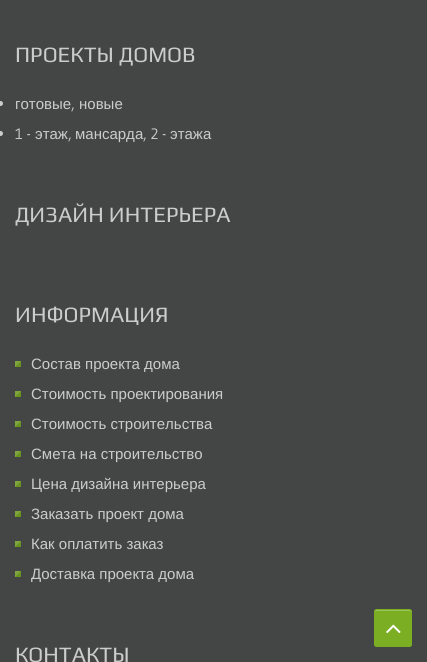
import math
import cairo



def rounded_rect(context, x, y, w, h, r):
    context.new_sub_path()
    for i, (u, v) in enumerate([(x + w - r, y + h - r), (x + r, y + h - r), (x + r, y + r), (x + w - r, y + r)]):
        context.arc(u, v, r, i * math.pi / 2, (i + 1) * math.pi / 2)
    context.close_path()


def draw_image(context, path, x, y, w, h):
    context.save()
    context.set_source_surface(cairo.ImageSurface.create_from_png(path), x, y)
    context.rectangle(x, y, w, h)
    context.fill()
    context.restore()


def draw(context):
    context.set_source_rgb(68 / 255, 70 / 255, 69 / 255)
    context.paint()
    context.set_source_rgb(204 / 255, 204 / 255, 204 / 255)
    context.arc(0.5, 103.5, 2.5, 0, 2 * math.pi)
    context.fill()
    context.arc(0.5, 133.5, 2.5, 0, 2 * math.pi)
    context.fill()
    draw_image(context, "images/1.png", 15, 361, 6, 6)
    draw_image(context, "images/1.png", 15, 391, 6, 6)
    draw_image(context, "images/1.png", 15, 421, 6, 6)
    draw_image(context, "images/1.png", 15, 451, 6, 6)
    draw_image(context, "images/1.png", 15, 481, 6, 6)
    draw_image(context, "images/1.png", 15, 511, 6, 6)
    draw_image(context, "images/1.png", 15, 541, 6, 6)
    draw_image(context, "images/1.png", 15, 571, 6, 6)
    context.set_source_rgb(123 / 255, 174 / 255, 35 / 255)
    rounded_rect(context, 374, 609, 38, 38, 3)
    context.fill()
    context.set_source_rgb(156 / 255, 194 / 255, 90 / 255)
    context.new_path()
    context.move_to(377, 611)
    context.line_to(409, 611)
    context.curve_to(410, 611, 411, 612, 411, 613)
    context.curve_to(411, 608.5, 407.5, 610, 403.5, 610)
    context.line_to(382.5, 610)
    context.curve_to(378.5, 610, 375, 608.5, 375, 613)
    context.curve_to(375, 612, 376, 611, 377, 611)
    context.close_path()
    context.fill()
    rounded_rect(context, 374.5, 609.5, 37, 37, 2.5)
    context.set_source_rgb(123 / 255, 174 / 255, 35 / 255)
    context.set_line_width(1)
    context.stroke()
    draw_image(context, "images/2.png", 386, 624, 15, 9)
    context.select_font_face("Play")
    context.set_font_size(22)
    context.set_source_rgb(204 / 255, 204 / 255, 204 / 255)
    context.move_to(15, 62)
    context.show_text("ПРОЕКТЫ ДОМОВ")
    context.select_font_face("Liberation Sans")
    context.set_font_size(15)
    context.move_to(15, 109)
    context.show_text("готовые")
    context.move_to(79, 109)
    context.show_text("новые")
    context.select_font_face("Gudea")
    context.move_to(71, 109)
    context.show_text(",")
    context.move_to(15, 139)
    context.show_text("1 -")
    context.select_font_face("Liberation Sans")
    context.move_to(35, 139)
    context.show_text("этаж")
    context.move_to(75, 139)
    context.show_text("мансарда")
    context.select_font_face("Gudea")
    context.move_to(143, 139)
    context.show_text(", 2 -")
    context.select_font_face("Liberation Sans")
    context.move_to(170, 139)
    context.show_text("этажа")
    context.select_font_face("Gudea")
    context.move_to(68, 139)
    context.show_text(",")
    context.select_font_face("Play")
    context.set_font_size(22)
    context.move_to(15, 222)
    context.show_text("ДИЗАЙН ИНТЕРЬЕРА")
    context.move_to(15, 322)
    context.show_text("ИНФОРМАЦИЯ")
    context.select_font_face("Liberation Sans")
    context.set_font_size(15)
    context.move_to(31, 369)
    context.show_text("Состав проекта дома")
    context.move_to(31, 399)
    context.show_text("Стоимость проектирования")
    context.move_to(31, 429)
    context.show_text("Стоимость строительства")
    context.move_to(31, 459)
    context.show_text("Смета на строительство")
    context.move_to(31, 489)
    context.show_text("Цена дизайна интерьера")
    context.move_to(31, 519)
    context.show_text("Заказать проект дома")
    context.move_to(31, 549)
    context.show_text("Как оплатить заказ")
    context.move_to(31, 579)
    context.show_text("Доставка проекта дома")
    context.select_font_face("Play")
    context.set_font_size(22)
    context.move_to(15, 662)
    context.show_text("КОНТАКТЫ")


surface = cairo.ImageSurface(cairo.Format.RGB24, 427, 662)
context = cairo.Context(surface)
options = cairo.FontOptions()
options.set_hint_metrics(cairo.HintMetrics.OFF)
options.set_hint_style(cairo.HintStyle.NONE)
context.set_font_options(options)
context.set_miter_limit(4)
draw(context)
surface.write_to_png("out.png")
